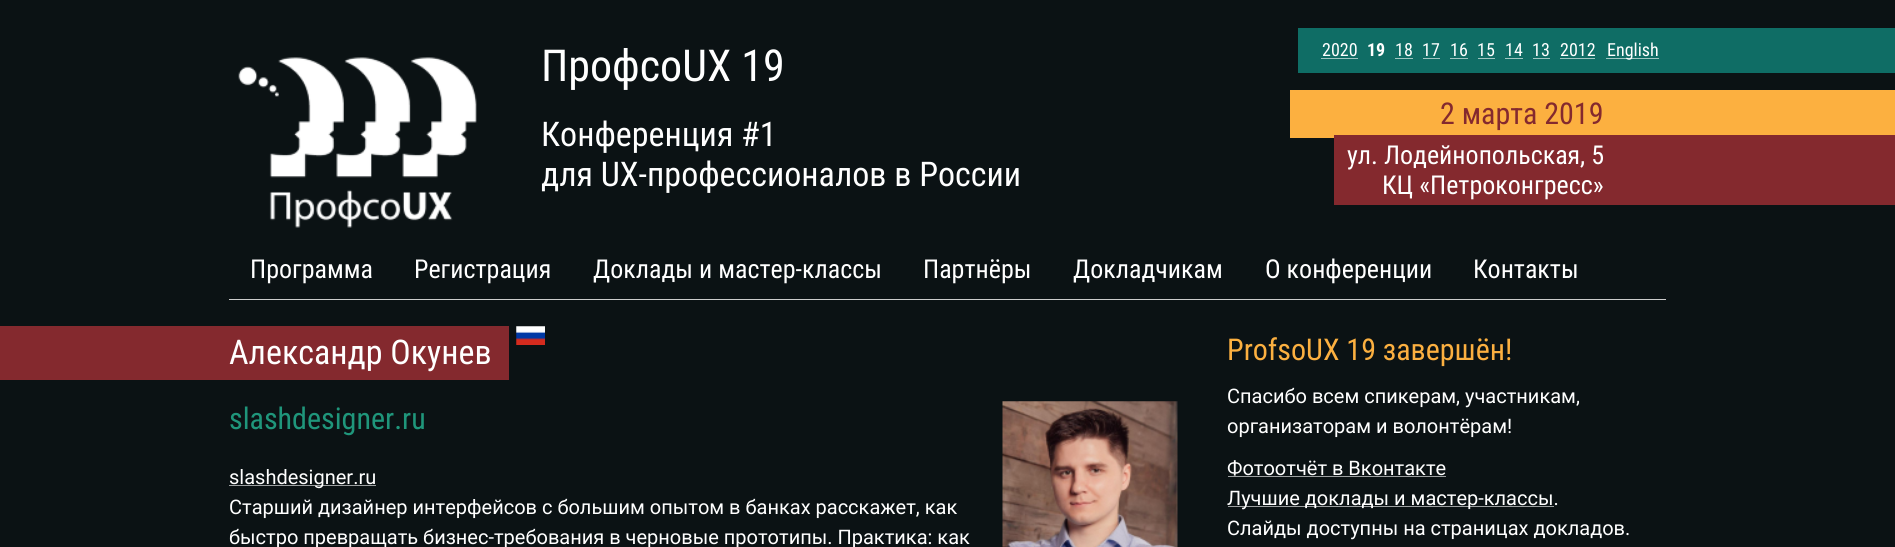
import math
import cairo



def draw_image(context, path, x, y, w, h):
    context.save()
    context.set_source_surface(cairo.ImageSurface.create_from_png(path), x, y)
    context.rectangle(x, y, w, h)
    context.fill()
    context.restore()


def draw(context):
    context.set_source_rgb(11 / 255, 18 / 255, 20 / 255)
    context.paint()
    context.set_source_rgb(15 / 255, 109 / 255, 101 / 255)
    context.rectangle(1298, 28, 597, 45)
    context.fill()
    context.set_source_rgb(159 / 255, 197 / 255, 193 / 255)
    context.rectangle(1321, 58, 37, 1)
    context.fill()
    context.rectangle(1395, 58, 18, 1)
    context.fill()
    context.rectangle(1423, 58, 17, 1)
    context.fill()
    context.rectangle(1450, 58, 18, 1)
    context.fill()
    context.rectangle(1478, 58, 17, 1)
    context.fill()
    context.rectangle(1505, 58, 18, 1)
    context.fill()
    context.rectangle(1533, 58, 17, 1)
    context.fill()
    context.rectangle(1560, 58, 35, 1)
    context.fill()
    context.rectangle(1606, 58, 53, 1)
    context.fill()
    draw_image(context, "images/1.png", 238, 57, 239, 171)
    context.set_source_rgb(252 / 255, 176 / 255, 64 / 255)
    context.rectangle(1290, 90, 605, 48)
    context.fill()
    context.set_source_rgb(132 / 255, 41 / 255, 46 / 255)
    context.rectangle(1334, 135, 561, 70)
    context.fill()
    context.set_source_rgb(204 / 255, 204 / 255, 204 / 255)
    context.rectangle(229, 299, 1437, 1)
    context.fill()
    draw_image(context, "images/2.png", 516, 326, 29, 19)
    context.set_source_rgb(132 / 255, 41 / 255, 46 / 255)
    context.rectangle(0, 326, 509, 54)
    context.fill()
    draw_image(context, "images/3.png", 1002, 401, 176, 146)
    context.set_source_rgb(157 / 255, 160 / 255, 161 / 255)
    context.rectangle(229, 485, 147, 1)
    context.fill()
    context.rectangle(1228, 476, 218, 1)
    context.fill()
    context.rectangle(1228, 506, 326, 1)
    context.fill()
    context.select_font_face("Roboto Condensed")
    context.set_font_size(18)
    context.set_source_rgb(1, 1, 1)
    context.move_to(1322, 56)
    context.show_text("2020")
    context.select_font_face("Roboto Condensed", cairo.FontSlant.NORMAL, cairo.FontWeight.BOLD)
    context.move_to(1367, 56)
    context.show_text("19")
    context.select_font_face("Roboto Condensed")
    context.move_to(1395, 56)
    context.show_text("18")
    context.move_to(1422, 56)
    context.show_text("17")
    context.move_to(1450, 56)
    context.show_text("16")
    context.move_to(1477, 56)
    context.show_text("15")
    context.move_to(1505, 56)
    context.show_text("14")
    context.move_to(1532, 56)
    context.show_text("13")
    context.move_to(1560, 56)
    context.show_text("2012")
    context.move_to(1607, 56)
    context.show_text("English")
    context.set_font_size(44)
    context.move_to(541, 81)
    context.show_text("ПрофсоUX 19")
    context.set_font_size(34)
    context.move_to(541, 146)
    context.show_text("Конференция #1")
    context.move_to(541, 186)
    context.show_text("для UX-профессионалов в России")
    context.set_font_size(30)
    context.set_source_rgb(132 / 255, 41 / 255, 46 / 255)
    context.move_to(1440, 124)
    context.show_text("2 марта 2019")
    context.set_font_size(26)
    context.set_source_rgb(1, 1, 1)
    context.move_to(1347, 164)
    context.show_text("ул. Лодейнопольская, 5")
    context.move_to(1382, 194)
    context.show_text("КЦ «Петроконгресс»")
    context.move_to(250, 278)
    context.show_text("Программа")
    context.move_to(414, 278)
    context.show_text("Регистрация")
    context.move_to(593, 278)
    context.show_text("Доклады и мастер-классы")
    context.move_to(923, 278)
    context.show_text("Партнёры")
    context.move_to(1073, 278)
    context.show_text("Докладчикам")
    context.move_to(1265, 278)
    context.show_text("О конференции")
    context.move_to(1473, 278)
    context.show_text("Контакты")
    context.set_font_size(34)
    context.move_to(229, 364)
    context.show_text("Александр Окунев")
    context.set_font_size(30)
    context.set_source_rgb(31 / 255, 150 / 255, 123 / 255)
    context.move_to(229, 429)
    context.show_text("slashdesigner.ru")
    context.select_font_face("Roboto")
    context.set_font_size(20)
    context.set_source_rgb(1, 1, 1)
    context.move_to(229, 484)
    context.show_text("slashdesigner.ru")
    context.move_to(229, 514)
    context.show_text("Старший дизайнер интерфейсов с большим опытом в банках расскажет, как")
    context.move_to(229, 544)
    context.show_text("быстро превращать бизнес-требования в черновые прототипы. Практика: как")
    context.select_font_face("Roboto Condensed")
    context.set_font_size(30)
    context.set_source_rgb(252 / 255, 176 / 255, 64 / 255)
    context.move_to(1227, 360)
    context.show_text("ProfsoUX 19 завершён!")
    context.select_font_face("Roboto")
    context.set_font_size(20)
    context.set_source_rgb(1, 1, 1)
    context.move_to(1227, 403)
    context.show_text("Спасибо всем спикерам, участникам,")
    context.move_to(1227, 433)
    context.show_text("организаторам и волонтёрам!")
    context.move_to(1227, 475)
    context.show_text("Фотоотчёт в Вконтакте")
    context.move_to(1227, 505)
    context.show_text("Лучшие доклады и мастер-классы.")
    context.move_to(1227, 535)
    context.show_text("Слайды доступны на страницах докладов.")


surface = cairo.ImageSurface(cairo.Format.RGB24, 1895, 547)
context = cairo.Context(surface)
options = cairo.FontOptions()
options.set_hint_metrics(cairo.HintMetrics.OFF)
options.set_hint_style(cairo.HintStyle.NONE)
context.set_font_options(options)
context.set_miter_limit(4)
draw(context)
surface.write_to_png("out.png")
